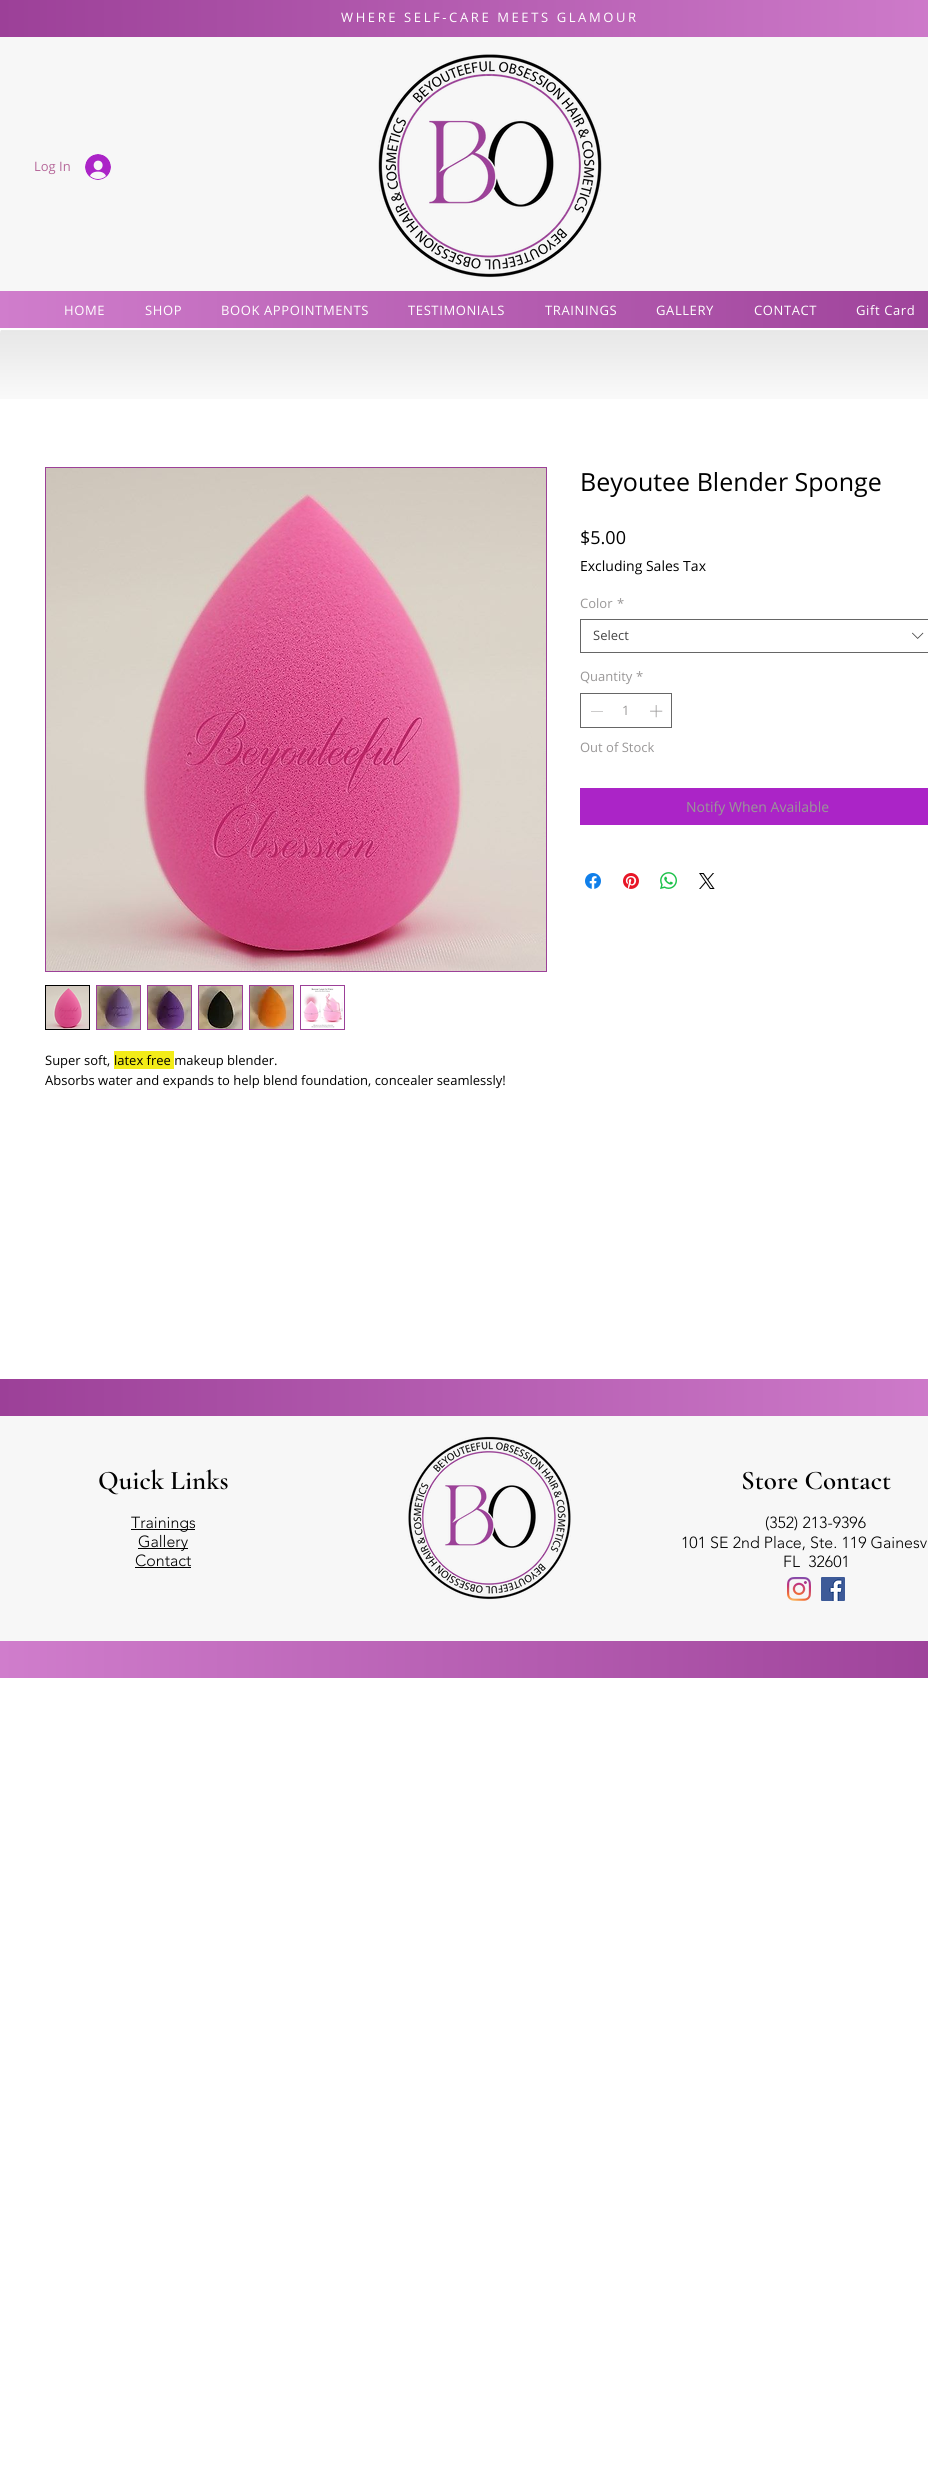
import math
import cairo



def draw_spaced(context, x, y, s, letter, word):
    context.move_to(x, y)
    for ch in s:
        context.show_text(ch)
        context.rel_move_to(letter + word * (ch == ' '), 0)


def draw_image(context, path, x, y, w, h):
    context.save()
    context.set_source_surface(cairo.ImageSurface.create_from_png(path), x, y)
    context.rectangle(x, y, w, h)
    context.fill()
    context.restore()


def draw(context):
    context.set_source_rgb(1, 1, 1)
    context.paint()
    gradient = cairo.LinearGradient(0, 19, 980, 18)
    gradient.add_color_stop_rgba(0, 156 / 255, 64 / 255, 152 / 255, 1)
    gradient.add_color_stop_rgba(1, 208 / 255, 125 / 255, 204 / 255, 1)
    context.set_source(gradient)
    context.rectangle(0, 0, 928, 37)
    context.fill()
    context.set_source_rgb(247 / 255, 247 / 255, 247 / 255)
    context.rectangle(0, 37, 928, 254)
    context.fill()
    draw_image(context, "images/1.png", 85, 154, 26, 26)
    draw_image(context, "images/2.png", 378, 54, 224, 224)
    gradient = cairo.LinearGradient(0, 310, 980, 309)
    gradient.add_color_stop_rgba(0, 208 / 255, 125 / 255, 204 / 255, 1)
    gradient.add_color_stop_rgba(1, 156 / 255, 64 / 255, 152 / 255, 1)
    context.set_source(gradient)
    context.rectangle(0, 291, 928, 37)
    context.fill()
    draw_image(context, "images/3.png", 0, 330, 928, 69)
    context.rectangle(580.5, 619.5, 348, 33)
    context.set_source_rgb(102 / 255, 102 / 255, 102 / 255)
    context.set_line_width(1)
    context.stroke()
    draw_image(context, "images/4.png", 912, 632, 12, 7)
    context.rectangle(580.5, 693.5, 91, 34)
    context.stroke()
    context.set_source_rgb(153 / 255, 151 / 255, 151 / 255)
    context.set_fill_rule(cairo.FillRule.EVEN_ODD)
    context.new_path()
    context.move_to(603, 711)
    context.line_to(603, 711.5)
    context.line_to(591, 711.5)
    context.line_to(591, 711)
    context.close_path()
    context.fill()
    draw_image(context, "images/5.png", 650, 705, 13, 13)
    context.set_source_rgb(171 / 255, 36 / 255, 199 / 255)
    context.rectangle(580, 788, 348, 37)
    context.fill()
    draw_image(context, "images/6.png", 585, 873, 16, 16)
    draw_image(context, "images/7.png", 623, 873, 16, 16)
    draw_image(context, "images/8.png", 660, 872, 17, 17)
    draw_image(context, "images/9.png", 699, 873, 16, 16)
    context.rectangle(45.5, 467.5, 501, 504)
    context.set_source_rgb(156 / 255, 64 / 255, 152 / 255)
    context.stroke()
    draw_image(context, "images/10.png", 46, 468, 500, 503)
    context.rectangle(45.5, 985.5, 44, 44)
    context.set_source_rgb(0, 0, 0)
    context.stroke()
    draw_image(context, "images/11.png", 46, 986, 43, 43)
    context.set_source_rgb(156 / 255, 64 / 255, 152 / 255)
    context.rectangle(96, 985, 45, 45)
    context.fill()
    draw_image(context, "images/12.png", 97, 986, 43, 43)
    context.rectangle(147, 985, 45, 45)
    context.fill()
    draw_image(context, "images/13.png", 148, 986, 43, 43)
    context.rectangle(198, 985, 45, 45)
    context.fill()
    draw_image(context, "images/14.png", 199, 986, 43, 43)
    context.rectangle(249, 985, 45, 45)
    context.fill()
    draw_image(context, "images/15.png", 250, 986, 43, 43)
    context.rectangle(300, 985, 45, 45)
    context.fill()
    draw_image(context, "images/16.png", 301, 986, 43, 43)
    context.set_source_rgb(243 / 255, 236 / 255, 24 / 255)
    context.rectangle(114, 1051, 60, 18)
    context.fill()
    context.set_source_rgb(247 / 255, 247 / 255, 247 / 255)
    context.rectangle(0, 1416, 928, 225)
    context.fill()
    gradient = cairo.LinearGradient(0, 1398, 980, 1398)
    gradient.add_color_stop_rgba(0, 156 / 255, 64 / 255, 152 / 255, 1)
    gradient.add_color_stop_rgba(1, 208 / 255, 125 / 255, 204 / 255, 1)
    context.set_source(gradient)
    context.rectangle(0, 1379, 928, 37)
    context.fill()
    context.set_source_rgb(0, 0, 0)
    context.rectangle(131, 1529, 64, 1)
    context.fill()
    context.rectangle(138, 1548, 50, 1)
    context.fill()
    context.rectangle(135, 1567, 56, 1)
    context.fill()
    draw_image(context, "images/17.png", 408, 1436, 163, 164)
    draw_image(context, "images/18.png", 787, 1577, 24, 24)
    draw_image(context, "images/19.png", 821, 1577, 24, 24)
    gradient = cairo.LinearGradient(0, 1660, 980, 1660)
    gradient.add_color_stop_rgba(0, 208 / 255, 125 / 255, 204 / 255, 1)
    gradient.add_color_stop_rgba(1, 156 / 255, 64 / 255, 152 / 255, 1)
    context.set_source(gradient)
    context.rectangle(0, 1641, 928, 37)
    context.fill()
    context.select_font_face("Open Sans")
    context.set_font_size(13)
    context.set_source_rgb(1, 1, 1)
    draw_spaced(context, 341, 22, "WHERE SELF-CARE MEETS GLAMOUR", 2.6, 0)
    context.set_source_rgb(182 / 255, 104 / 255, 154 / 255)
    context.move_to(34, 171)
    context.show_text("Log In")
    context.set_source_rgb(1, 1, 1)
    draw_spaced(context, 64, 315, "HOME", 0.6, 0)
    draw_spaced(context, 145, 315, "SHOP", 0.6, 0)
    draw_spaced(context, 221, 315, "BOOK APPOINTMENTS", 0.6, 0)
    draw_spaced(context, 408, 315, "TESTIMONIALS", 0.6, 0)
    draw_spaced(context, 545, 315, "TRAININGS", 0.6, 0)
    draw_spaced(context, 656, 315, "GALLERY", 0.6, 0)
    draw_spaced(context, 754, 315, "CONTACT", 0.6, 0)
    draw_spaced(context, 856, 315, "Gift Card", 0.6, 0)
    context.set_font_size(25)
    context.set_source_rgb(0, 0, 0)
    context.move_to(580, 491)
    context.show_text("Beyoutee Blender Sponge")
    context.set_font_size(18)
    context.move_to(580, 544)
    context.show_text("$5.00")
    context.set_font_size(14)
    context.move_to(580, 571)
    context.show_text("Excluding Sales Tax")
    context.set_font_size(13)
    context.set_source_rgb(153 / 255, 151 / 255, 151 / 255)
    context.move_to(580, 608)
    context.show_text("Color")
    context.move_to(617, 608)
    context.show_text("*")
    context.set_source_rgb(68 / 255, 68 / 255, 68 / 255)
    context.move_to(593, 640)
    context.show_text("Select")
    context.set_source_rgb(153 / 255, 151 / 255, 151 / 255)
    context.move_to(580, 681)
    context.show_text("Quantity")
    context.move_to(636, 681)
    context.show_text("*")
    context.move_to(622, 715)
    context.show_text("1")
    context.move_to(580, 752)
    context.show_text("Out of Stock")
    context.set_font_size(14)
    context.move_to(686, 812)
    context.show_text("Notify When Available")
    context.set_font_size(13)
    context.set_source_rgb(0, 0, 0)
    context.move_to(45, 1065)
    context.show_text("Super soft,")
    context.move_to(114, 1065)
    context.show_text("latex free makeup blender.")
    context.move_to(45, 1085)
    context.show_text("Absorbs water and expands to help blend foundation, concealer seamlessly!")
    context.select_font_face("Cormorant Garamond SemiBold")
    context.set_font_size(27)
    context.move_to(98, 1489)
    context.show_text("Quick Links")
    context.select_font_face("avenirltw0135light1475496 Light")
    context.set_font_size(16)
    context.move_to(131, 1528)
    context.show_text("Trainings")
    context.move_to(138, 1547)
    context.show_text("Gallery")
    context.move_to(135, 1566)
    context.show_text("Contact")
    context.select_font_face("Cormorant Garamond SemiBold")
    context.set_font_size(27)
    context.move_to(741, 1489)
    context.show_text("Store Contact")
    context.select_font_face("avenirltw0135light1475496 Light")
    context.set_font_size(16)
    context.move_to(765, 1528)
    context.show_text("(352) 213-9396")
    context.move_to(681, 1548)
    context.show_text("101 SE 2nd Place, Ste. 119 Gainesv")
    context.move_to(783, 1567)
    context.show_text("FL  32601")


surface = cairo.ImageSurface(cairo.Format.RGB24, 928, 2490)
context = cairo.Context(surface)
options = cairo.FontOptions()
options.set_hint_metrics(cairo.HintMetrics.OFF)
options.set_hint_style(cairo.HintStyle.NONE)
context.set_font_options(options)
context.set_miter_limit(4)
draw(context)
surface.write_to_png("out.png")
